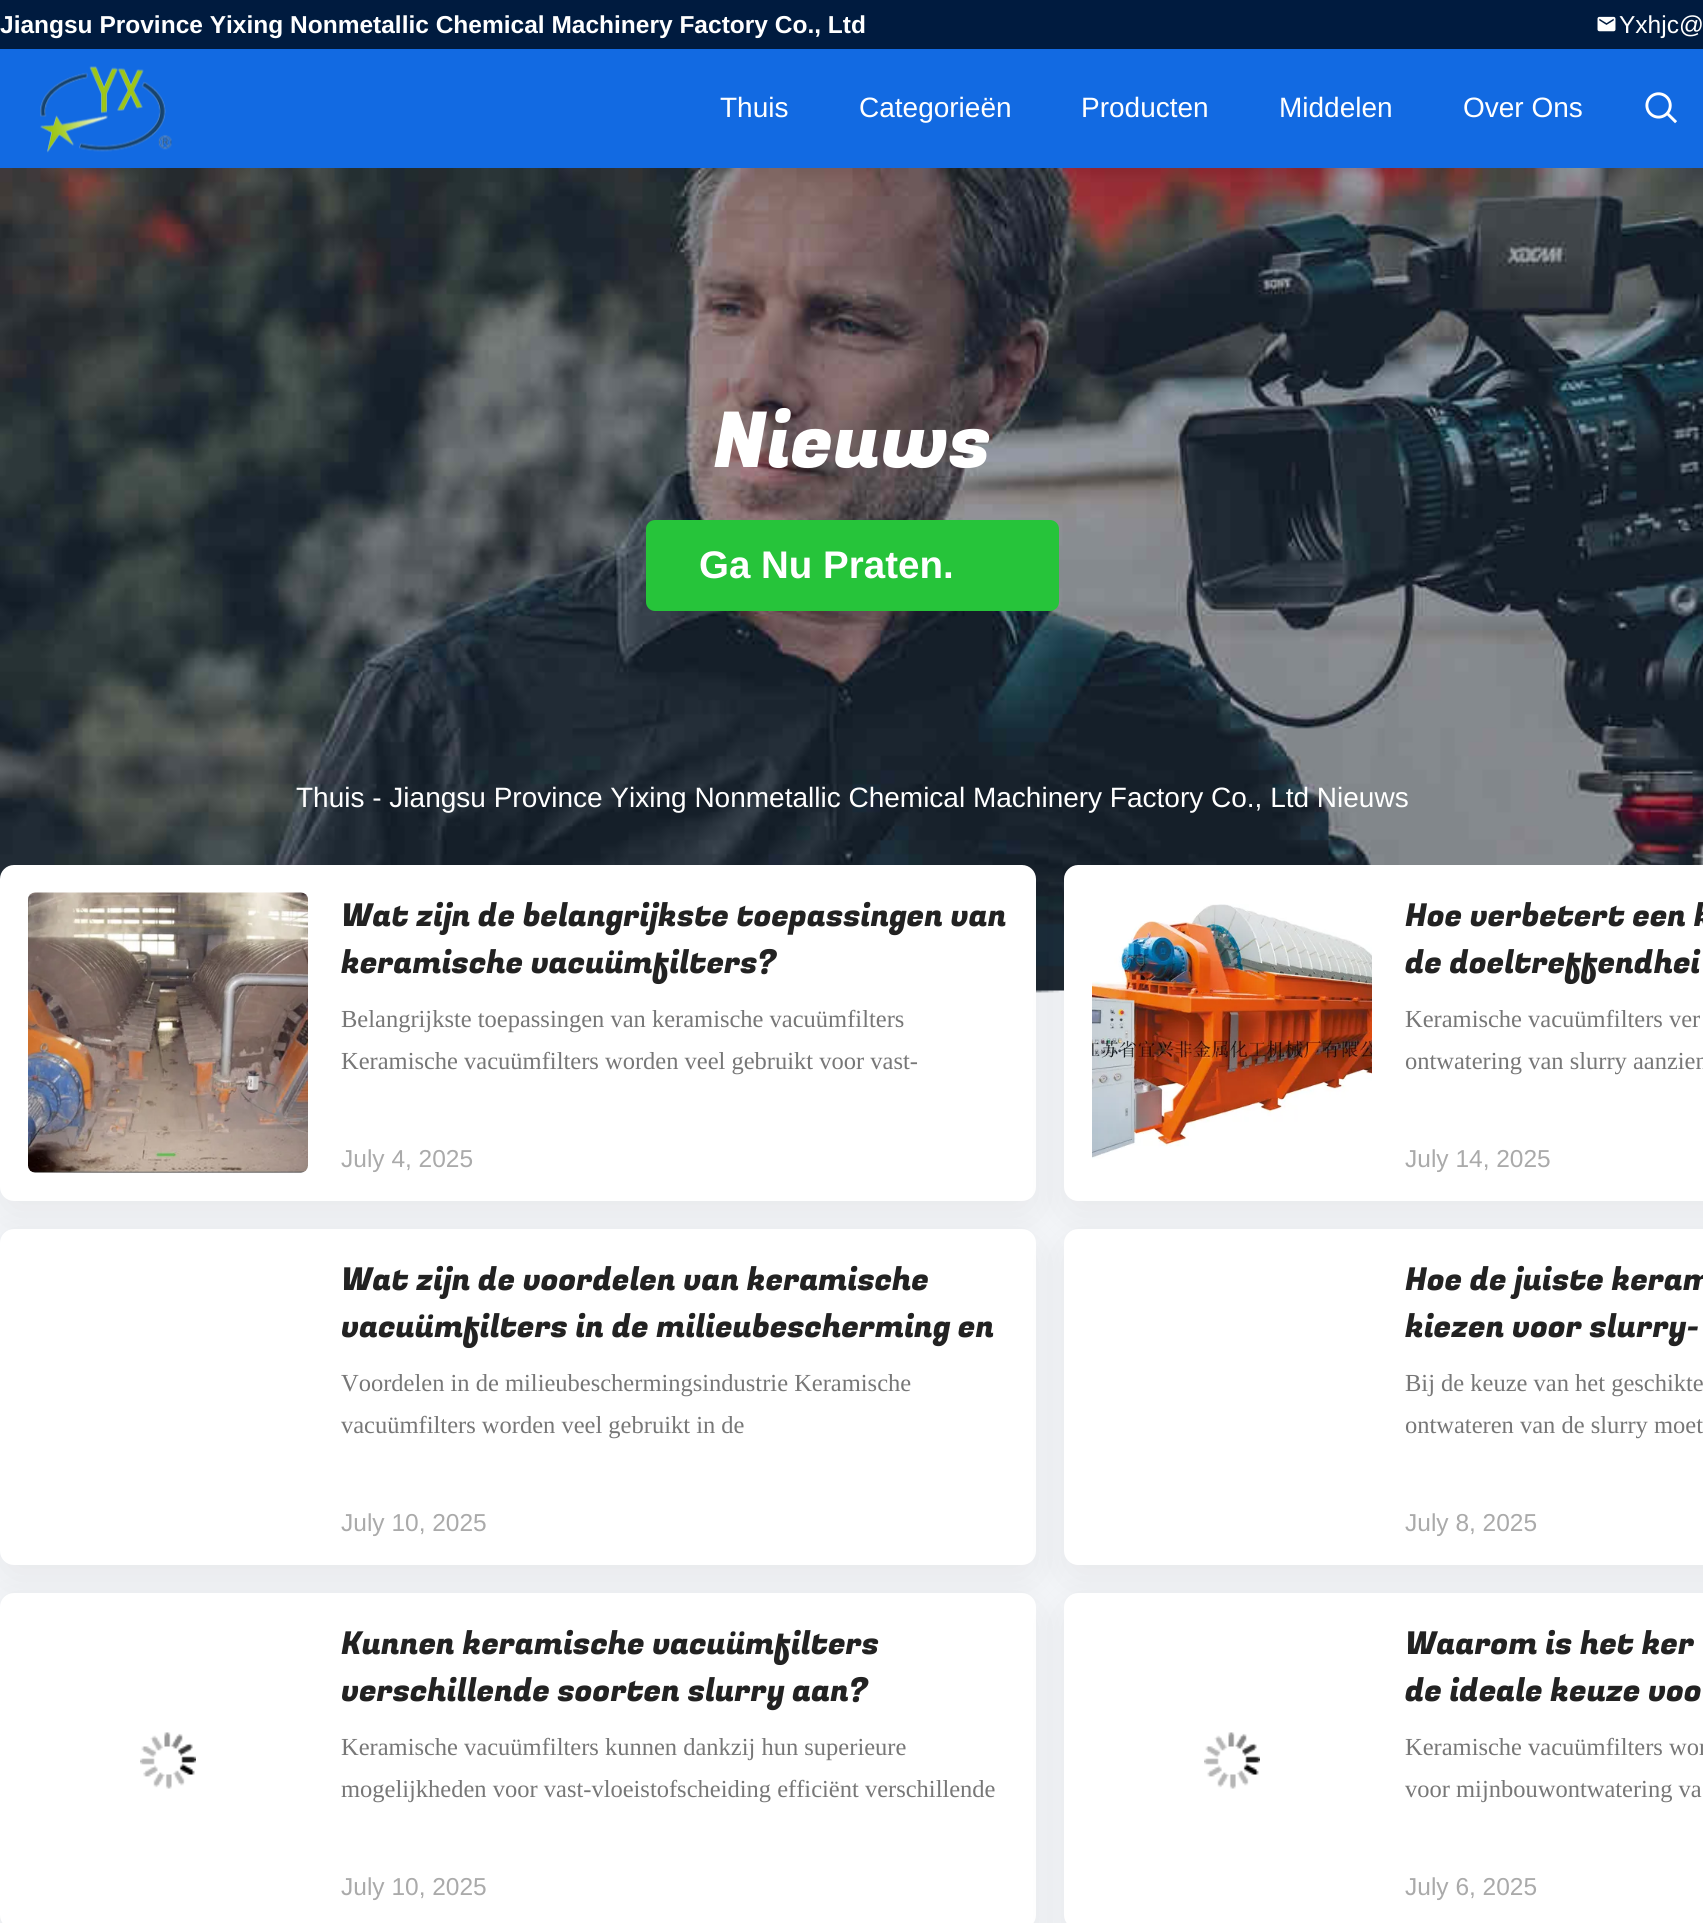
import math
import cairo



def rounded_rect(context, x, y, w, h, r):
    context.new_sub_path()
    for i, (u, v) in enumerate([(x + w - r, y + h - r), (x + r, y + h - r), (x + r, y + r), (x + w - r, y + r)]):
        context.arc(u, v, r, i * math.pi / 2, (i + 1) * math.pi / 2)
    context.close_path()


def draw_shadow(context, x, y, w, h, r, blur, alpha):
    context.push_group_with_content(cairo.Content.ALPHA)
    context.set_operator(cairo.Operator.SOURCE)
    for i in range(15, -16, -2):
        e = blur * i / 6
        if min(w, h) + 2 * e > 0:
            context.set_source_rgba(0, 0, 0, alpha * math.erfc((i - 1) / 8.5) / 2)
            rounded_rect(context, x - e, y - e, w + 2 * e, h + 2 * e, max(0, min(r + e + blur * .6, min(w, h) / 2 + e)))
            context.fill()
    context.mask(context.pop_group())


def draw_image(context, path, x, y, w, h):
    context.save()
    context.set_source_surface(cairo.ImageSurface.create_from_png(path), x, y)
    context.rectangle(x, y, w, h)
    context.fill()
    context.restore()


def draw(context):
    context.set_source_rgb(244 / 255, 246 / 255, 249 / 255)
    context.paint()
    context.set_source_rgb(0, 27 / 255, 63 / 255)
    context.rectangle(0, 0, 1703, 49)
    context.fill()
    draw_image(context, "images/1.png", 1597, 16, 19, 16)
    context.set_source_rgb(18 / 255, 106 / 255, 226 / 255)
    context.rectangle(0, 49, 1703, 119)
    context.fill()
    draw_image(context, "images/2.png", 40, 66, 132, 87)
    draw_image(context, "images/3.png", 1645, 92, 32, 32)
    draw_image(context, "images/4.png", 0, 168, 1703, 825)
    context.set_source_rgb(38 / 255, 196 / 255, 58 / 255)
    rounded_rect(context, 646, 520, 413, 91, 9)
    context.fill()
    draw_image(context, "images/5.png", 1036, 990, 28, 4)
    context.save()
    context.rectangle(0, 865, 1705, 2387)
    context.clip()
    context.set_source_rgb(68 / 255, 68 / 255, 68 / 255)
    draw_shadow(context, 0, 879, 1036, 336, 14, 21, 0.08)
    context.restore()
    context.set_source_rgb(1, 1, 1)
    rounded_rect(context, 0, 865, 1036, 336, 14)
    context.fill()
    draw_image(context, "images/6.png", 28, 892, 280, 281)
    context.save()
    context.rectangle(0, 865, 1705, 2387)
    context.clip()
    context.set_source_rgb(68 / 255, 68 / 255, 68 / 255)
    draw_shadow(context, 1064, 879, 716, 336, 14, 21, 0.08)
    context.restore()
    context.new_path()
    context.move_to(1078, 865)
    context.line_to(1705, 865)
    context.line_to(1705, 1201)
    context.line_to(1078, 1201)
    context.curve_to(1070.5, 1201, 1064, 1194.5, 1064, 1187)
    context.line_to(1064, 879)
    context.curve_to(1064, 871.5, 1070.5, 865, 1078, 865)
    context.close_path()
    context.fill()
    draw_image(context, "images/7.png", 1092, 904, 280, 255)
    context.set_source_rgb(68 / 255, 68 / 255, 68 / 255)
    draw_shadow(context, 0, 1243, 1036, 336, 14, 21, 0.08)
    context.set_source_rgb(1, 1, 1)
    rounded_rect(context, 0, 1229, 1036, 336, 14)
    context.fill()
    context.set_source_rgb(68 / 255, 68 / 255, 68 / 255)
    draw_shadow(context, 1064, 1243, 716, 336, 14, 21, 0.08)
    context.set_source_rgb(1, 1, 1)
    context.new_path()
    context.move_to(1078, 1229)
    context.line_to(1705, 1229)
    context.line_to(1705, 1565)
    context.line_to(1078, 1565)
    context.curve_to(1070.5, 1565, 1064, 1558.5, 1064, 1551)
    context.line_to(1064, 1243)
    context.curve_to(1064, 1235.5, 1070.5, 1229, 1078, 1229)
    context.close_path()
    context.fill()
    context.set_source_rgb(68 / 255, 68 / 255, 68 / 255)
    draw_shadow(context, 0, 1607, 1036, 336, 14, 21, 0.08)
    context.set_source_rgb(1, 1, 1)
    rounded_rect(context, 0, 1593, 1036, 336, 14)
    context.fill()
    draw_image(context, "images/8.png", 140, 1732, 56, 57)
    context.set_source_rgb(68 / 255, 68 / 255, 68 / 255)
    draw_shadow(context, 1064, 1607, 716, 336, 14, 21, 0.08)
    context.set_source_rgb(1, 1, 1)
    context.new_path()
    context.move_to(1078, 1593)
    context.line_to(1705, 1593)
    context.line_to(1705, 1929)
    context.line_to(1078, 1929)
    context.curve_to(1070.5, 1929, 1064, 1922.5, 1064, 1915)
    context.line_to(1064, 1607)
    context.curve_to(1064, 1599.5, 1070.5, 1593, 1078, 1593)
    context.close_path()
    context.fill()
    draw_image(context, "images/9.png", 1204, 1732, 56, 57)
    context.select_font_face("Liberation Sans", cairo.FontSlant.NORMAL, cairo.FontWeight.BOLD)
    context.set_font_size(24.5)
    context.move_to(0, 33)
    context.show_text("Jiangsu Province Yixing Nonmetallic Chemical Machinery Factory Co., Ltd")
    context.select_font_face("Liberation Sans")
    context.move_to(1619, 33)
    context.show_text("Yxhjc@")
    context.set_font_size(28)
    context.move_to(720, 117)
    context.show_text("Thuis")
    context.move_to(859, 117)
    context.show_text("Categorieën")
    context.move_to(1081, 117)
    context.show_text("Producten")
    context.move_to(1279, 117)
    context.show_text("Middelen")
    context.move_to(1463, 117)
    context.show_text("Over Ons")
    context.select_font_face("Fugaz One")
    context.set_font_size(77)
    context.move_to(713, 467)
    context.show_text("Nieuws")
    context.select_font_face("Liberation Sans", cairo.FontSlant.NORMAL, cairo.FontWeight.BOLD)
    context.set_font_size(38.5)
    context.move_to(699, 578)
    context.show_text("Ga Nu Praten.")
    context.select_font_face("Liberation Sans")
    context.set_font_size(28)
    context.move_to(296, 807)
    context.show_text("Thuis - Jiangsu Province Yixing Nonmetallic Chemical Machinery Factory Co., Ltd Nieuws")
    context.select_font_face("Fugaz One")
    context.set_font_size(31.5)
    context.set_source_rgb(34 / 255, 34 / 255, 34 / 255)
    context.move_to(341, 926)
    context.show_text("Wat zijn de belangrijkste toepassingen van")
    context.move_to(341, 973)
    context.show_text("keramische vacuümfilters?")
    context.select_font_face("Liberation Serif")
    context.set_font_size(24.5)
    context.set_source_rgb(119 / 255, 119 / 255, 119 / 255)
    context.move_to(341, 1027)
    context.show_text("Belangrijkste toepassingen van keramische vacuümfilters")
    context.move_to(341, 1069)
    context.show_text("Keramische vacuümfilters worden veel gebruikt voor vast-")
    context.select_font_face("Liberation Sans")
    context.set_source_rgb(170 / 255, 170 / 255, 170 / 255)
    context.move_to(341, 1167)
    context.show_text("July 4, 2025")
    context.select_font_face("Fugaz One")
    context.set_font_size(31.5)
    context.set_source_rgb(34 / 255, 34 / 255, 34 / 255)
    context.move_to(1405, 926)
    context.show_text("Hoe verbetert een k")
    context.move_to(1405, 973)
    context.show_text("de doeltreffendhei")
    context.select_font_face("Liberation Serif")
    context.set_font_size(24.5)
    context.set_source_rgb(119 / 255, 119 / 255, 119 / 255)
    context.move_to(1405, 1027)
    context.show_text("Keramische vacuümfilters ver")
    context.move_to(1405, 1069)
    context.show_text("ontwatering van slurry aanzien")
    context.select_font_face("Liberation Sans")
    context.set_source_rgb(170 / 255, 170 / 255, 170 / 255)
    context.move_to(1405, 1167)
    context.show_text("July 14, 2025")
    context.select_font_face("Fugaz One")
    context.set_font_size(31.5)
    context.set_source_rgb(34 / 255, 34 / 255, 34 / 255)
    context.move_to(341, 1290)
    context.show_text("Wat zijn de voordelen van keramische")
    context.move_to(341, 1337)
    context.show_text("vacuümfilters in de milieubescherming en")
    context.select_font_face("Liberation Serif")
    context.set_font_size(24.5)
    context.set_source_rgb(119 / 255, 119 / 255, 119 / 255)
    context.move_to(341, 1391)
    context.show_text("Voordelen in de milieubeschermingsindustrie Keramische")
    context.move_to(341, 1433)
    context.show_text("vacuümfilters worden veel gebruikt in de")
    context.select_font_face("Liberation Sans")
    context.set_source_rgb(170 / 255, 170 / 255, 170 / 255)
    context.move_to(341, 1531)
    context.show_text("July 10, 2025")
    context.select_font_face("Fugaz One")
    context.set_font_size(31.5)
    context.set_source_rgb(34 / 255, 34 / 255, 34 / 255)
    context.move_to(1405, 1290)
    context.show_text("Hoe de juiste keram")
    context.move_to(1405, 1337)
    context.show_text("kiezen voor slurry-")
    context.select_font_face("Liberation Serif")
    context.set_font_size(24.5)
    context.set_source_rgb(119 / 255, 119 / 255, 119 / 255)
    context.move_to(1405, 1391)
    context.show_text("Bij de keuze van het geschikte")
    context.move_to(1405, 1433)
    context.show_text("ontwateren van de slurry moet")
    context.select_font_face("Liberation Sans")
    context.set_source_rgb(170 / 255, 170 / 255, 170 / 255)
    context.move_to(1405, 1531)
    context.show_text("July 8, 2025")
    context.select_font_face("Fugaz One")
    context.set_font_size(31.5)
    context.set_source_rgb(34 / 255, 34 / 255, 34 / 255)
    context.move_to(341, 1654)
    context.show_text("Kunnen keramische vacuümfilters")
    context.move_to(341, 1701)
    context.show_text("verschillende soorten slurry aan?")
    context.select_font_face("Liberation Serif")
    context.set_font_size(24.5)
    context.set_source_rgb(119 / 255, 119 / 255, 119 / 255)
    context.move_to(341, 1755)
    context.show_text("Keramische vacuümfilters kunnen dankzij hun superieure")
    context.move_to(341, 1797)
    context.show_text("mogelijkheden voor vast-vloeistofscheiding efficiënt verschillende")
    context.select_font_face("Liberation Sans")
    context.set_source_rgb(170 / 255, 170 / 255, 170 / 255)
    context.move_to(341, 1895)
    context.show_text("July 10, 2025")
    context.select_font_face("Fugaz One")
    context.set_font_size(31.5)
    context.set_source_rgb(34 / 255, 34 / 255, 34 / 255)
    context.move_to(1405, 1654)
    context.show_text("Waarom is het ker")
    context.move_to(1405, 1701)
    context.show_text("de ideale keuze voo")
    context.select_font_face("Liberation Serif")
    context.set_font_size(24.5)
    context.set_source_rgb(119 / 255, 119 / 255, 119 / 255)
    context.move_to(1405, 1755)
    context.show_text("Keramische vacuümfilters wor")
    context.move_to(1405, 1797)
    context.show_text("voor mijnbouwontwatering va")
    context.select_font_face("Liberation Sans")
    context.set_source_rgb(170 / 255, 170 / 255, 170 / 255)
    context.move_to(1405, 1895)
    context.show_text("July 6, 2025")


surface = cairo.ImageSurface(cairo.Format.RGB24, 1703, 1923)
context = cairo.Context(surface)
options = cairo.FontOptions()
options.set_hint_metrics(cairo.HintMetrics.OFF)
options.set_hint_style(cairo.HintStyle.NONE)
context.set_font_options(options)
context.set_miter_limit(4)
draw(context)
surface.write_to_png("out.png")
